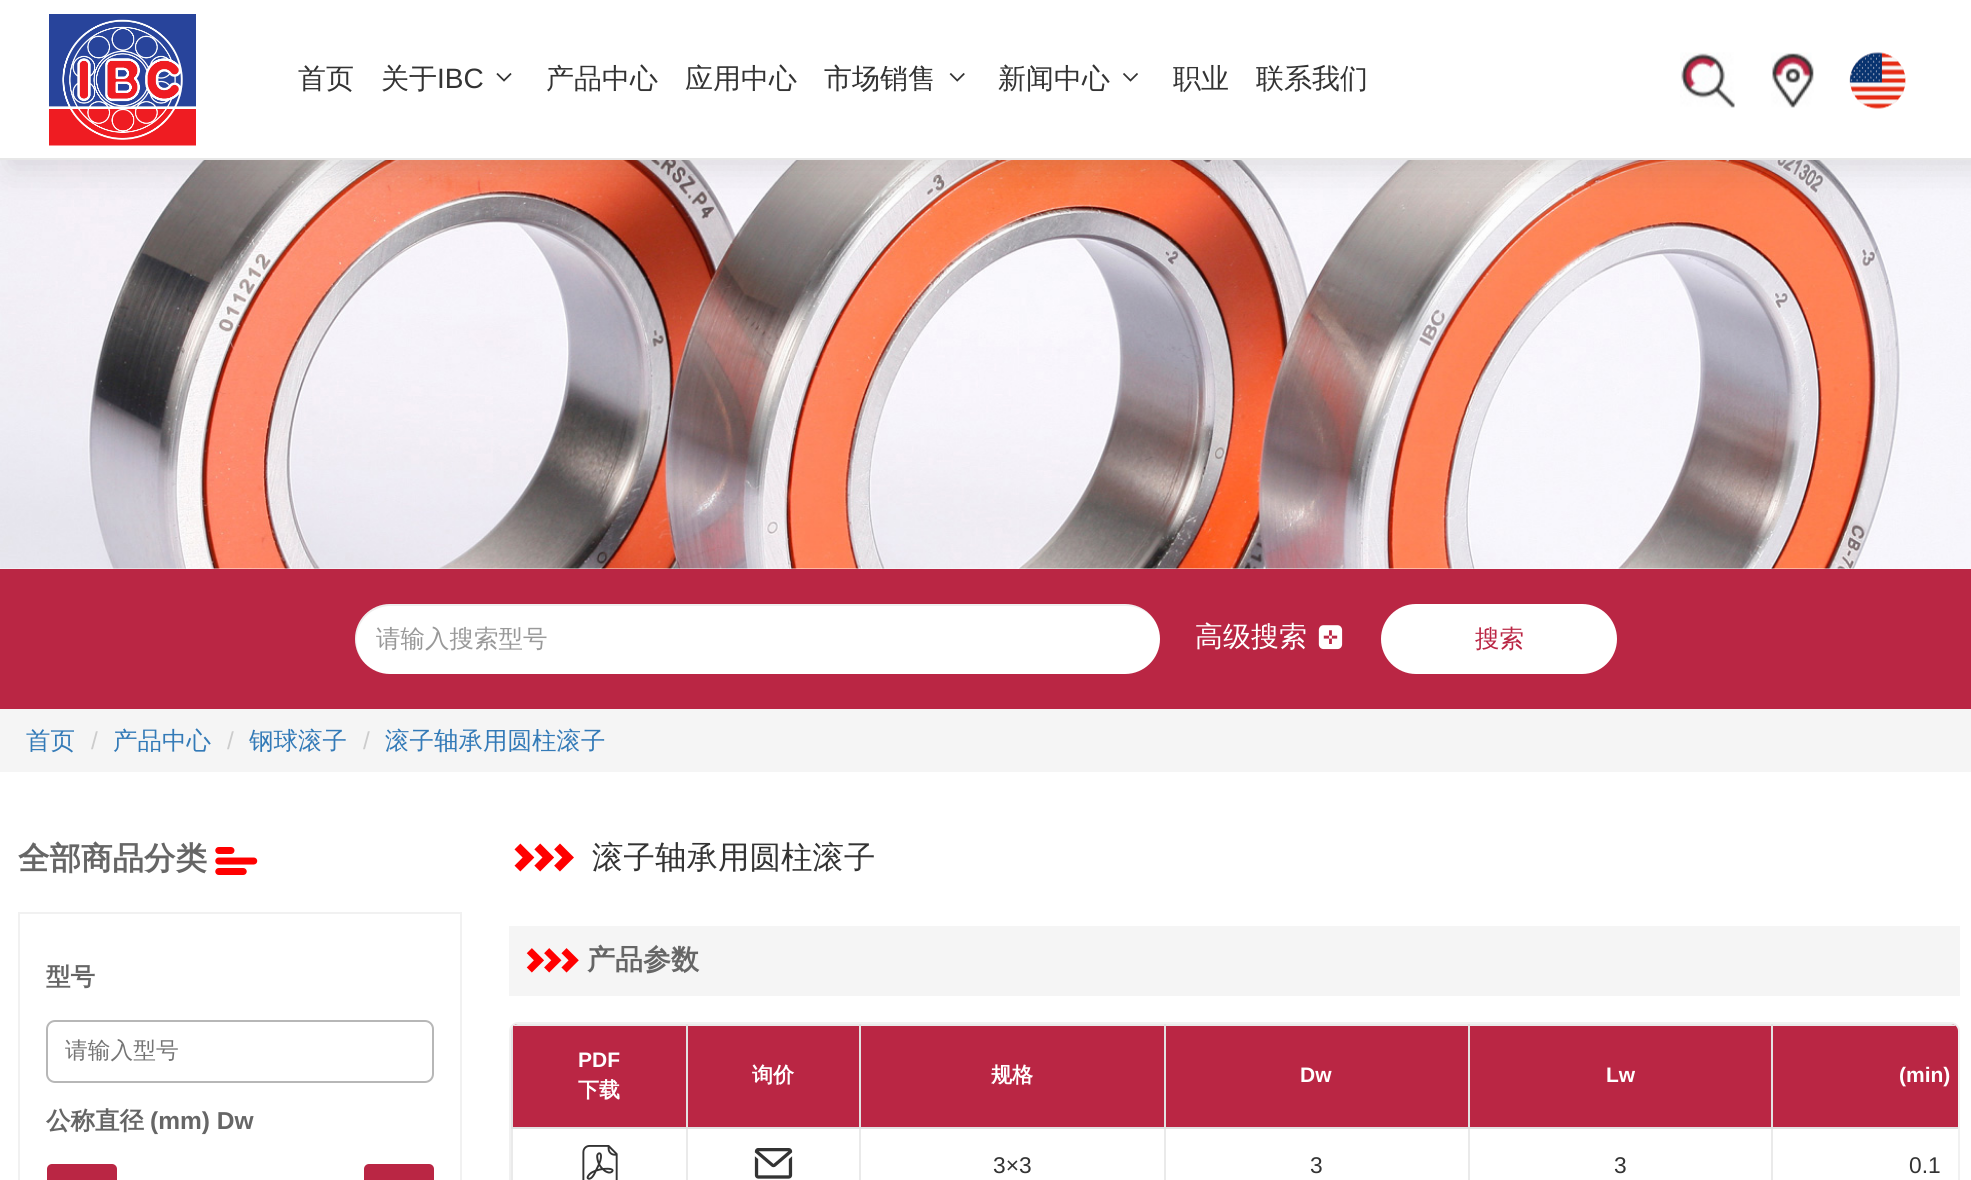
import math
import cairo



def rounded_rect(context, x, y, w, h, r):
    context.new_sub_path()
    for i, (u, v) in enumerate([(x + w - r, y + h - r), (x + r, y + h - r), (x + r, y + r), (x + w - r, y + r)]):
        context.arc(u, v, r, i * math.pi / 2, (i + 1) * math.pi / 2)
    context.close_path()


def draw_shadow(context, x, y, w, h, r, blur, alpha):
    context.push_group_with_content(cairo.Content.ALPHA)
    context.set_operator(cairo.Operator.SOURCE)
    for i in range(15, -16, -2):
        e = blur * i / 6
        if min(w, h) + 2 * e > 0:
            context.set_source_rgba(0, 0, 0, alpha * math.erfc((i - 1) / 8.5) / 2)
            rounded_rect(context, x - e, y - e, w + 2 * e, h + 2 * e, max(0, min(r + e + blur * .6, min(w, h) / 2 + e)))
            context.fill()
    context.mask(context.pop_group())


def draw_image(context, path, x, y, w, h):
    context.save()
    context.set_source_surface(cairo.ImageSurface.create_from_png(path), x, y)
    context.rectangle(x, y, w, h)
    context.fill()
    context.restore()


def draw(context):
    context.set_source_rgb(1, 1, 1)
    context.paint()
    draw_image(context, "images/8.png", 0, 160, 1971, 409)
    context.set_source_rgb(51 / 255, 51 / 255, 51 / 255)
    draw_shadow(context, 9, 9, 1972, 159, 0, 17.5, 0.15)
    context.set_source_rgb(1, 1, 1)
    context.rectangle(0, 0, 1971, 158)
    context.fill()
    context.set_source_rgb(231 / 255, 231 / 255, 231 / 255)
    context.rectangle(0, 158, 1971, 2)
    context.fill()
    draw_image(context, "images/1.png", 49, 14, 147, 132)
    draw_image(context, "images/2.png", 496, 73, 16, 9)
    draw_image(context, "images/3.png", 949, 73, 16, 9)
    draw_image(context, "images/4.png", 1123, 73, 15, 9)
    draw_image(context, "images/5.png", 1680, 52, 55, 56)
    draw_image(context, "images/6.png", 1771, 52, 43, 56)
    draw_image(context, "images/7.png", 1849, 52, 57, 57)
    context.set_source_rgb(186 / 255, 38 / 255, 68 / 255)
    context.rectangle(0, 569, 1971, 140)
    context.fill()
    context.set_source_rgb(1, 1, 1)
    rounded_rect(context, 355, 604, 805, 70, 35)
    context.fill()
    context.set_source_rgba(0, 0, 0, 0.07)
    context.new_path()
    context.move_to(391, 606)
    context.line_to(1126, 606)
    context.curve_to(1138, 606, 1149, 612, 1155, 621)
    context.curve_to(1149, 611, 1138, 604, 1125, 604)
    context.line_to(390, 604)
    context.curve_to(371, 604, 355, 620, 355, 639)
    context.curve_to(355, 647, 357, 654, 362, 659)
    context.curve_to(347, 636, 363, 606, 391, 606)
    context.close_path()
    context.fill()
    draw_image(context, "images/9.png", 1318, 625, 25, 25)
    context.set_source_rgb(1, 1, 1)
    rounded_rect(context, 1381, 604, 236, 70, 35)
    context.fill()
    context.set_source_rgb(245 / 255, 245 / 255, 245 / 255)
    context.rectangle(0, 709, 1971, 63)
    context.fill()
    draw_image(context, "images/10.png", 215, 847, 43, 28)
    context.rectangle(19, 913, 442, 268)
    context.set_source_rgb(241 / 255, 241 / 255, 241 / 255)
    context.stroke()
    rounded_rect(context, 47, 1021, 386, 61, 8)
    context.set_source_rgb(183 / 255, 183 / 255, 183 / 255)
    context.stroke()
    context.set_source_rgb(186 / 255, 38 / 255, 68 / 255)
    rounded_rect(context, 47, 1164, 70, 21, 5)
    context.fill()
    rounded_rect(context, 364, 1164, 70, 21, 5)
    context.fill()
    draw_image(context, "images/11.png", 514, 843, 60, 29)
    context.set_source_rgb(245 / 255, 245 / 255, 245 / 255)
    context.rectangle(509, 926, 1451, 70)
    context.fill()
    draw_image(context, "images/12.png", 526, 948, 53, 25)
    rounded_rect(context, 510, 1023, 1449, 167, 8)
    context.set_source_rgb(241 / 255, 241 / 255, 241 / 255)
    context.stroke()
    context.save()
    rounded_rect(context, 511, 1024, 1447, 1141, 7)
    context.clip()
    context.set_source_rgb(186 / 255, 38 / 255, 68 / 255)
    context.new_path()
    context.move_to(513, 1024)
    context.line_to(1951, 1024)
    context.curve_to(1955, 1024, 1958, 1027, 1958, 1031)
    context.line_to(1958, 1127)
    context.line_to(513, 1127)
    context.close_path()
    context.fill()
    context.set_source_rgb(234 / 255, 234 / 255, 234 / 255)
    context.rectangle(1771, 1024, 187, 2)
    context.fill()
    context.restore()
    context.set_source_rgb(234 / 255, 234 / 255, 234 / 255)
    context.rectangle(686, 1024, 1087, 2)
    context.fill()
    context.save()
    rounded_rect(context, 511, 1024, 1447, 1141, 7)
    context.clip()
    context.rectangle(511, 1024, 177, 2)
    context.fill()
    context.restore()
    context.rectangle(1771, 1127, 2, 53)
    context.fill()
    context.set_source_rgb(226 / 255, 226 / 255, 226 / 255)
    context.rectangle(1771, 1127, 187, 2)
    context.fill()
    context.rectangle(1771, 1024, 2, 105)
    context.fill()
    context.set_source_rgb(234 / 255, 234 / 255, 234 / 255)
    context.rectangle(1468, 1127, 2, 53)
    context.fill()
    context.set_source_rgb(226 / 255, 226 / 255, 226 / 255)
    context.rectangle(1468, 1127, 305, 2)
    context.fill()
    context.rectangle(1468, 1024, 2, 105)
    context.fill()
    context.set_source_rgb(234 / 255, 234 / 255, 234 / 255)
    context.rectangle(1164, 1127, 2, 53)
    context.fill()
    context.set_source_rgb(226 / 255, 226 / 255, 226 / 255)
    context.rectangle(1164, 1127, 306, 2)
    context.fill()
    context.rectangle(1164, 1024, 2, 105)
    context.fill()
    context.set_source_rgb(234 / 255, 234 / 255, 234 / 255)
    context.rectangle(859, 1127, 2, 53)
    context.fill()
    context.set_source_rgb(226 / 255, 226 / 255, 226 / 255)
    context.rectangle(859, 1127, 307, 2)
    context.fill()
    context.rectangle(859, 1024, 2, 105)
    context.fill()
    context.set_source_rgb(234 / 255, 234 / 255, 234 / 255)
    context.rectangle(686, 1127, 2, 53)
    context.fill()
    context.set_source_rgb(226 / 255, 226 / 255, 226 / 255)
    context.rectangle(686, 1127, 175, 2)
    context.fill()
    context.rectangle(686, 1024, 2, 105)
    context.fill()
    context.set_source_rgb(234 / 255, 234 / 255, 234 / 255)
    context.rectangle(511, 1127, 2, 53)
    context.fill()
    context.set_source_rgb(226 / 255, 226 / 255, 226 / 255)
    context.rectangle(511, 1127, 177, 2)
    context.fill()
    context.save()
    rounded_rect(context, 511, 1024, 1447, 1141, 7)
    context.clip()
    context.rectangle(511, 1024, 2, 105)
    context.fill()
    context.restore()
    draw_image(context, "images/13.png", 582, 1145, 36, 35)
    draw_image(context, "images/14.png", 754, 1148, 39, 31)
    context.select_font_face("WenQuanYi Zen Hei Medium")
    context.set_font_size(28)
    context.set_source_rgb(51 / 255, 51 / 255, 51 / 255)
    context.move_to(298, 88)
    context.show_text("首页")
    context.move_to(381, 88)
    context.show_text("关于")
    context.select_font_face("Liberation Sans")
    context.move_to(437, 88)
    context.show_text("IBC")
    context.select_font_face("WenQuanYi Zen Hei Medium")
    context.move_to(546, 88)
    context.show_text("产品中心")
    context.move_to(685, 88)
    context.show_text("应用中心")
    context.move_to(824, 88)
    context.show_text("市场销售")
    context.move_to(998, 88)
    context.show_text("新闻中心")
    context.move_to(1173, 88)
    context.show_text("职业")
    context.move_to(1256, 88)
    context.show_text("联系我们")
    context.set_font_size(24.5)
    context.set_source_rgb(153 / 255, 153 / 255, 153 / 255)
    context.move_to(376, 647)
    context.show_text("请输入搜索型号")
    context.set_font_size(28)
    context.set_source_rgb(1, 1, 1)
    context.move_to(1195, 646)
    context.show_text("高级搜索")
    context.set_font_size(24.5)
    context.set_source_rgb(186 / 255, 38 / 255, 68 / 255)
    context.move_to(1475, 647)
    context.show_text("搜索")
    context.set_source_rgb(51 / 255, 122 / 255, 183 / 255)
    context.move_to(26, 749)
    context.show_text("首页")
    context.select_font_face("Liberation Sans")
    context.set_source_rgb(204 / 255, 204 / 255, 204 / 255)
    context.move_to(91, 749)
    context.show_text("/")
    context.select_font_face("WenQuanYi Zen Hei Medium")
    context.set_source_rgb(51 / 255, 122 / 255, 183 / 255)
    context.move_to(113, 749)
    context.show_text("产品中心")
    context.select_font_face("Liberation Sans")
    context.set_source_rgb(204 / 255, 204 / 255, 204 / 255)
    context.move_to(227, 749)
    context.show_text("/")
    context.select_font_face("WenQuanYi Zen Hei Medium")
    context.set_source_rgb(51 / 255, 122 / 255, 183 / 255)
    context.move_to(249, 749)
    context.show_text("钢球滚子")
    context.select_font_face("Liberation Sans")
    context.set_source_rgb(204 / 255, 204 / 255, 204 / 255)
    context.move_to(363, 749)
    context.show_text("/")
    context.select_font_face("WenQuanYi Zen Hei Medium")
    context.set_source_rgb(51 / 255, 122 / 255, 183 / 255)
    context.move_to(385, 749)
    context.show_text("滚子轴承用圆柱滚子")
    context.select_font_face("WenQuanYi Zen Hei", cairo.FontSlant.NORMAL, cairo.FontWeight.BOLD)
    context.set_font_size(31.5)
    context.set_source_rgb(102 / 255, 102 / 255, 102 / 255)
    context.move_to(18, 869)
    context.show_text("全部商品分类")
    context.set_font_size(24.5)
    context.move_to(46, 985)
    context.show_text("型号")
    context.select_font_face("WenQuanYi Zen Hei Medium")
    context.set_font_size(22.75)
    context.set_source_rgb(117 / 255, 117 / 255, 117 / 255)
    context.move_to(65, 1058)
    context.show_text("请输入型号")
    context.select_font_face("WenQuanYi Zen Hei", cairo.FontSlant.NORMAL, cairo.FontWeight.BOLD)
    context.set_font_size(24.5)
    context.set_source_rgb(102 / 255, 102 / 255, 102 / 255)
    context.move_to(46, 1129)
    context.show_text("公称直径")
    context.select_font_face("Liberation Sans", cairo.FontSlant.NORMAL, cairo.FontWeight.BOLD)
    context.move_to(150, 1129)
    context.show_text("(mm) Dw")
    context.select_font_face("WenQuanYi Zen Hei Medium")
    context.set_font_size(31.5)
    context.set_source_rgb(51 / 255, 51 / 255, 51 / 255)
    context.move_to(592, 868)
    context.show_text("滚子轴承用圆柱滚子")
    context.select_font_face("WenQuanYi Zen Hei", cairo.FontSlant.NORMAL, cairo.FontWeight.BOLD)
    context.set_font_size(28)
    context.set_source_rgb(102 / 255, 102 / 255, 102 / 255)
    context.move_to(587, 969)
    context.show_text("产品参数")
    context.select_font_face("Liberation Sans", cairo.FontSlant.NORMAL, cairo.FontWeight.BOLD)
    context.set_font_size(21)
    context.set_source_rgb(1, 1, 1)
    context.move_to(578, 1067)
    context.show_text("PDF")
    context.select_font_face("WenQuanYi Zen Hei", cairo.FontSlant.NORMAL, cairo.FontWeight.BOLD)
    context.move_to(578, 1097)
    context.show_text("下载")
    context.move_to(752, 1082)
    context.show_text("询价")
    context.move_to(991, 1082)
    context.show_text("规格")
    context.select_font_face("Liberation Sans", cairo.FontSlant.NORMAL, cairo.FontWeight.BOLD)
    context.move_to(1300, 1082)
    context.show_text("Dw")
    context.move_to(1606, 1082)
    context.show_text("Lw")
    context.move_to(1899, 1082)
    context.show_text("(min)")
    context.select_font_face("Liberation Sans")
    context.set_font_size(22.75)
    context.set_source_rgb(51 / 255, 51 / 255, 51 / 255)
    context.move_to(993, 1173)
    context.show_text("3×3")
    context.move_to(1310, 1173)
    context.show_text("3")
    context.move_to(1614, 1173)
    context.show_text("3")
    context.move_to(1909, 1173)
    context.show_text("0.1")


surface = cairo.ImageSurface(cairo.Format.RGB24, 1971, 1180)
context = cairo.Context(surface)
options = cairo.FontOptions()
options.set_hint_metrics(cairo.HintMetrics.OFF)
options.set_hint_style(cairo.HintStyle.NONE)
context.set_font_options(options)
context.set_miter_limit(4)
draw(context)
surface.write_to_png("out.png")
